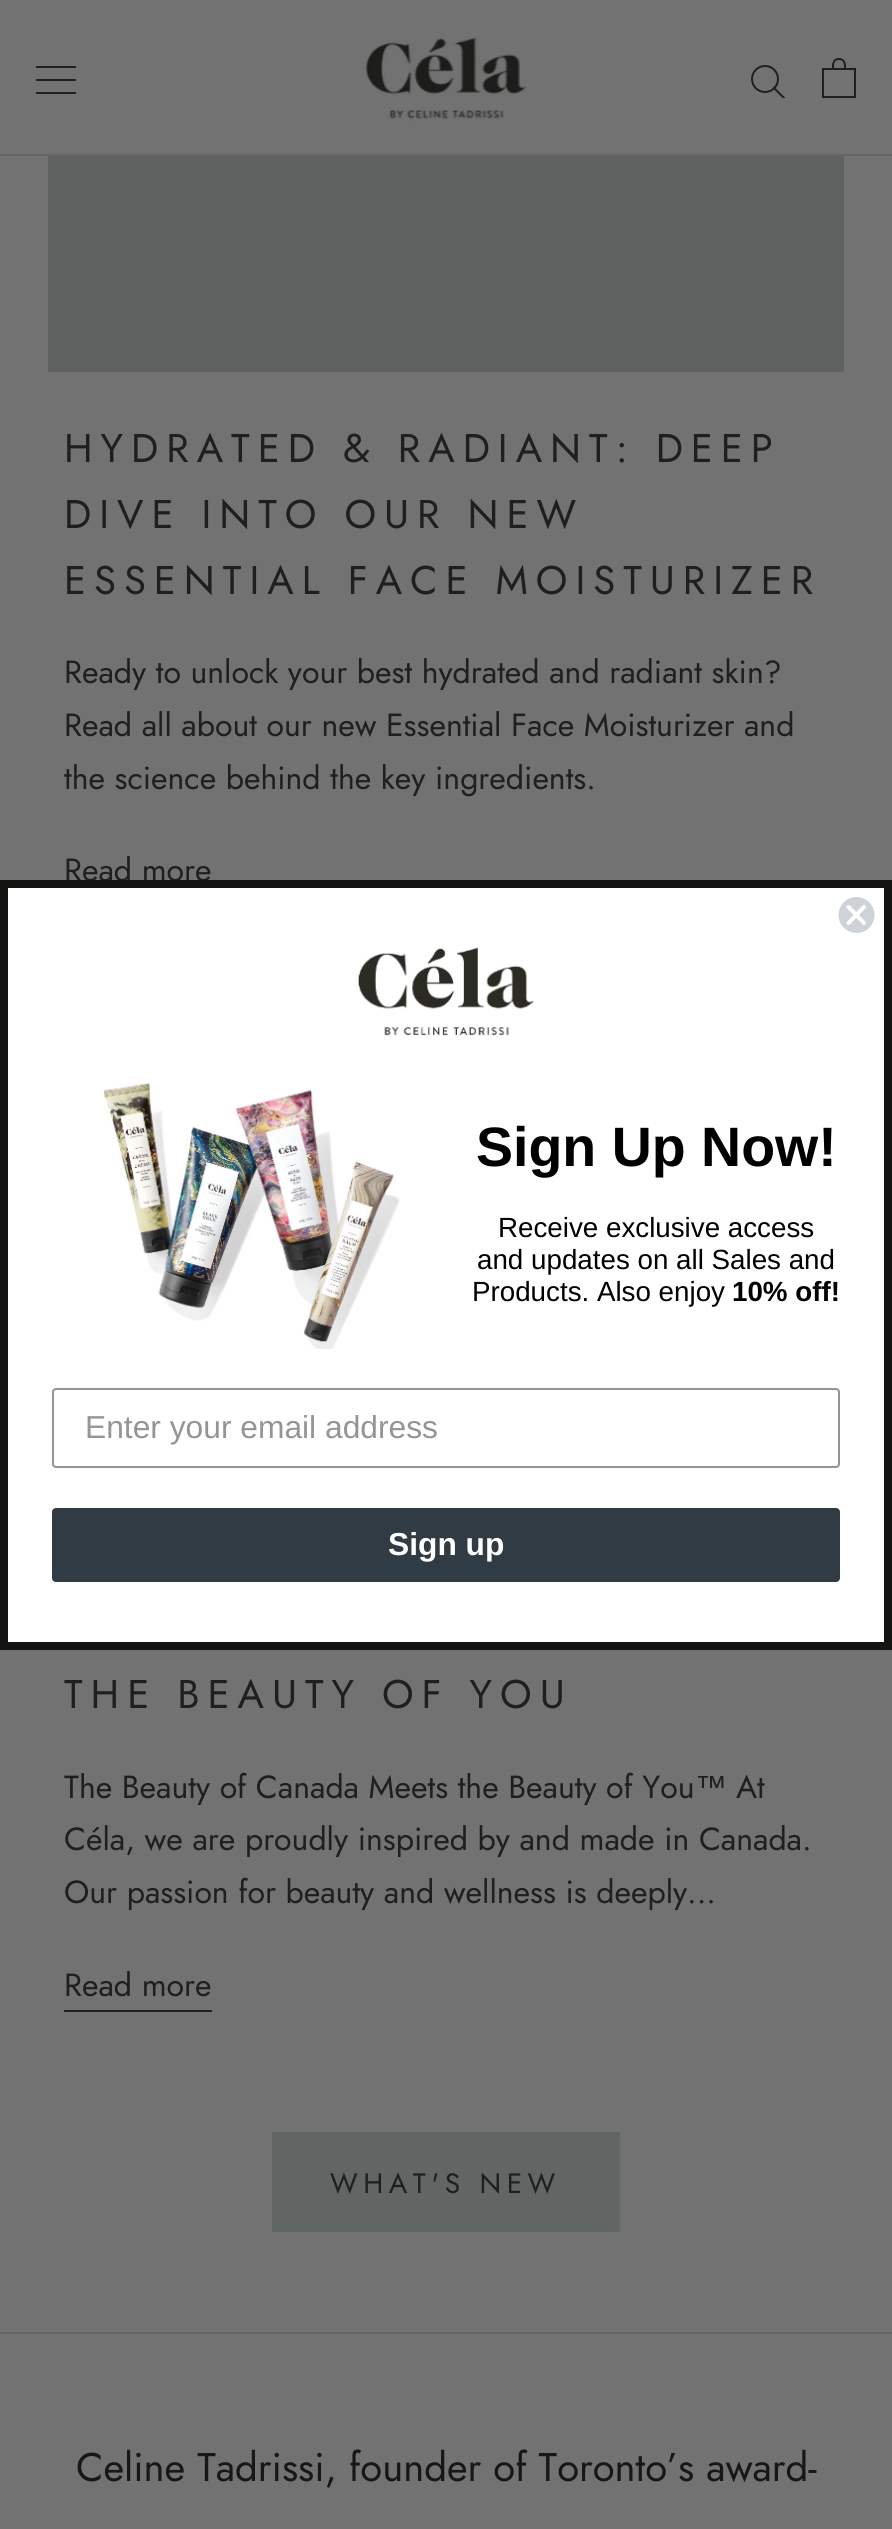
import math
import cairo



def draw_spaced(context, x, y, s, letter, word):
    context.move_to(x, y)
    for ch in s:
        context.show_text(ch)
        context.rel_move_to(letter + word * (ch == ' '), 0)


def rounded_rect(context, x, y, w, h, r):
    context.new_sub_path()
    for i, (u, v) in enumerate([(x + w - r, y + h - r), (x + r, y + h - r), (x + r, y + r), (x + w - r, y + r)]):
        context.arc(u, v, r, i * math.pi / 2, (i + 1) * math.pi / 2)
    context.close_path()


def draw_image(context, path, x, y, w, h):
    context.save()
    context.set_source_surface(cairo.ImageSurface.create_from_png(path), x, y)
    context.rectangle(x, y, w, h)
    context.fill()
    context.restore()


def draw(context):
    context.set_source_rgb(114 / 255, 114 / 255, 114 / 255)
    context.paint()
    context.set_source_rgb(102 / 255, 102 / 255, 102 / 255)
    context.rectangle(0, 154, 892, 2)
    context.fill()
    context.set_source_rgb(31 / 255, 31 / 255, 31 / 255)
    context.new_path()
    context.move_to(36, 94)
    context.line_to(36, 92)
    context.line_to(76, 92)
    context.line_to(76, 94)
    context.close_path()
    context.move_to(36, 79)
    context.line_to(76, 79)
    context.line_to(76, 81)
    context.line_to(36, 81)
    context.close_path()
    context.move_to(36, 66)
    context.line_to(76, 66)
    context.line_to(76, 68)
    context.line_to(36, 68)
    context.close_path()
    context.fill()
    draw_image(context, "images/1.png", 366, 36, 161, 86)
    context.save()
    context.rectangle(750, 64, 36, 34)
    context.clip()
    context.new_path()
    context.move_to(784, 98)
    context.line_to(774, 88)
    context.set_line_cap(cairo.LineCap.SQUARE)
    context.stroke()
    context.restore()
    context.arc(765, 79, 13, 0, 2 * math.pi)
    context.stroke()
    draw_image(context, "images/2.png", 822, 58, 34, 40)
    context.set_source_rgb(96 / 255, 98 / 255, 98 / 255)
    context.rectangle(48, 156, 796, 216)
    context.fill()
    context.set_source_rgb(31 / 255, 31 / 255, 31 / 255)
    context.rectangle(64, 2010, 148, 2)
    context.fill()
    context.rectangle(273, 2133, 346, 98)
    context.set_source_rgb(97 / 255, 101 / 255, 100 / 255)
    context.stroke()
    context.rectangle(274, 2134, 344, 96)
    context.fill()
    context.set_source_rgb(102 / 255, 102 / 255, 102 / 255)
    context.rectangle(0, 2332, 892, 2)
    context.fill()
    context.select_font_face("Jost")
    context.set_font_size(40)
    context.set_source_rgb(31 / 255, 31 / 255, 31 / 255)
    draw_spaced(context, 64, 462, "HYDRATED & RADIANT: DEEP", 8, 0)
    draw_spaced(context, 64, 528, "DIVE INTO OUR NEW", 8, 0)
    draw_spaced(context, 64, 594, "ESSENTIAL FACE MOISTURIZER", 8, 0)
    context.set_font_size(32)
    context.move_to(64, 683)
    context.show_text("Ready to unlock your best hydrated and radiant skin?")
    context.move_to(64, 736)
    context.show_text("Read all about our new Essential Face Moisturizer and")
    context.move_to(64, 789)
    context.show_text("the science behind the key ingredients.")
    context.move_to(64, 881)
    context.show_text("Read more")
    context.set_font_size(40)
    draw_spaced(context, 64, 1708, "THE BEAUTY OF YOU", 8, 0)
    context.set_font_size(32)
    context.move_to(64, 1798)
    context.show_text("The Beauty of Canada Meets the Beauty of You")
    context.select_font_face("Liberation Sans")
    context.move_to(695, 1798)
    context.show_text("™")
    context.select_font_face("Jost")
    context.move_to(736, 1798)
    context.show_text("At")
    context.move_to(64, 1850)
    context.show_text("Céla, we are proudly inspired by and made in Canada.")
    context.move_to(64, 1903)
    context.show_text("Our passion for beauty and wellness is deeply...")
    context.move_to(64, 1996)
    context.show_text("Read more")
    context.set_font_size(28)
    draw_spaced(context, 330, 2193, "WHAT'S NEW", 5.5, 0)
    context.set_font_size(40)
    context.set_source_rgb(23 / 255, 23 / 255, 23 / 255)
    context.move_to(76, 2481)
    context.show_text("Celine Tadrissi, founder of Toronto’s award-")
    context.set_source_rgb(1, 1, 1)
    context.rectangle(4, 884, 884, 762)
    context.fill_preserve()
    context.set_source_rgb(20 / 255, 20 / 255, 19 / 255)
    context.set_line_width(8)
    context.stroke()
    context.set_source_rgb(206 / 255, 211 / 255, 216 / 255)
    context.arc(856.5, 915, 19, 0, 2 * math.pi)
    context.fill()
    context.save()
    context.rectangle(836, 896, 40, 40)
    context.clip()
    context.arc(856.5, 915, 19, 0, 2 * math.pi)
    context.set_source_rgb(1, 1, 1)
    context.set_line_width(2)
    context.stroke()
    context.restore()
    context.new_path()
    context.move_to(848.5, 907)
    context.line_to(864, 923)
    context.move_to(848.5, 923)
    context.line_to(864, 907)
    context.close_path()
    context.set_source_rgb(1, 1, 1)
    context.set_line_width(4)
    context.set_line_cap(cairo.LineCap.ROUND)
    context.set_line_join(cairo.LineJoin.ROUND)
    context.stroke()
    draw_image(context, "images/3.png", 357, 947, 178, 89)
    draw_image(context, "images/4.png", 102, 1083, 298, 266)
    context.select_font_face("Liberation Sans", cairo.FontSlant.NORMAL, cairo.FontWeight.BOLD)
    context.set_font_size(55.5)
    context.set_source_rgb(0, 0, 0)
    context.move_to(476, 1166)
    context.show_text("Sign Up Now!")
    context.select_font_face("Liberation Sans")
    context.set_font_size(27.75)
    context.move_to(498, 1237)
    context.show_text("Receive exclusive access")
    context.move_to(477, 1269)
    context.show_text("and updates on all Sales and")
    context.move_to(472, 1301)
    context.show_text("Products. Also enjoy")
    context.select_font_face("Liberation Sans", cairo.FontSlant.NORMAL, cairo.FontWeight.BOLD)
    context.move_to(732, 1301)
    context.show_text("10% off!")
    rounded_rect(context, 53, 1389, 786, 78, 3)
    context.set_source_rgb(148 / 255, 149 / 255, 150 / 255)
    context.set_line_width(2)
    context.set_line_cap(cairo.LineCap.BUTT)
    context.set_line_join(cairo.LineJoin.MITER)
    context.stroke()
    context.select_font_face("Liberation Sans")
    context.set_font_size(31.75)
    context.move_to(85, 1438)
    context.show_text("Enter your email address")
    context.set_source_rgb(48 / 255, 59 / 255, 67 / 255)
    rounded_rect(context, 52, 1508, 788, 74, 4)
    context.fill()
    context.select_font_face("Liberation Sans", cairo.FontSlant.NORMAL, cairo.FontWeight.BOLD)
    context.set_source_rgb(1, 1, 1)
    context.move_to(388, 1555)
    context.show_text("Sign up")


surface = cairo.ImageSurface(cairo.Format.RGB24, 892, 2529)
context = cairo.Context(surface)
options = cairo.FontOptions()
options.set_hint_metrics(cairo.HintMetrics.OFF)
options.set_hint_style(cairo.HintStyle.NONE)
context.set_font_options(options)
context.set_miter_limit(4)
draw(context)
surface.write_to_png("out.png")
